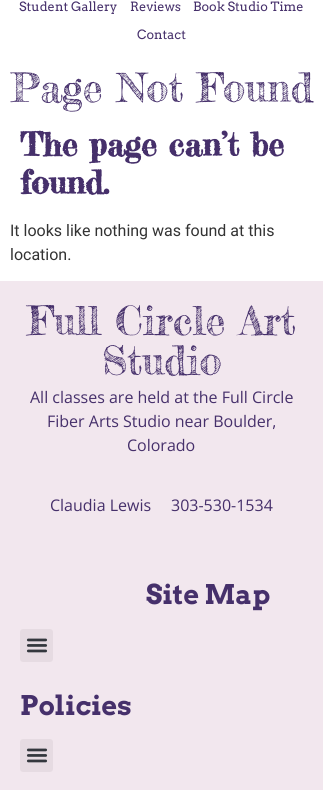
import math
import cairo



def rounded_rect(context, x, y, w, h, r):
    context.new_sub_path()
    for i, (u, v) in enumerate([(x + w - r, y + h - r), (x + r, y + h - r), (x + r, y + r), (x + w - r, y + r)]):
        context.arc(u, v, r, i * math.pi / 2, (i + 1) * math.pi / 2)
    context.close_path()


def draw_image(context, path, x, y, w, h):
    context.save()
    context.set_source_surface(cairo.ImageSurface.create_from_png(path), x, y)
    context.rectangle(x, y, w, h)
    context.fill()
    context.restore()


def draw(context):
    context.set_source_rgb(1, 1, 1)
    context.paint()
    context.set_source_rgb(242 / 255, 231 / 255, 238 / 255)
    context.rectangle(0, 281, 323, 509)
    context.fill()
    context.set_source_rgb(230 / 255, 219 / 255, 226 / 255)
    rounded_rect(context, 20, 629, 33, 33, 3)
    context.fill()
    draw_image(context, "images/1.png", 26, 638, 22, 15)
    rounded_rect(context, 20, 739, 33, 33, 3)
    context.fill()
    draw_image(context, "images/1.png", 26, 748, 22, 15)
    context.select_font_face("Arvo")
    context.set_font_size(12.75)
    context.set_source_rgb(70 / 255, 48 / 255, 107 / 255)
    context.move_to(19, 11)
    context.show_text("Student Gallery")
    context.move_to(130, 11)
    context.show_text("Reviews")
    context.move_to(193, 11)
    context.show_text("Book Studio Time")
    context.move_to(137, 39)
    context.show_text("Contact")
    context.select_font_face("Fredericka the Great")
    context.set_font_size(40)
    context.move_to(11, 102)
    context.show_text("Page Not Found")
    context.select_font_face("Fredericka the Great", cairo.FontSlant.NORMAL, cairo.FontWeight.BOLD)
    context.set_font_size(32)
    context.move_to(20, 156)
    context.show_text("The page can’t be")
    context.move_to(20, 194)
    context.show_text("found.")
    context.select_font_face("Roboto")
    context.set_font_size(16)
    context.set_source_rgb(51 / 255, 51 / 255, 51 / 255)
    context.move_to(10, 236)
    context.show_text("It looks like nothing was found at this")
    context.move_to(10, 260)
    context.show_text("location.")
    context.select_font_face("Fredericka the Great")
    context.set_font_size(40)
    context.set_source_rgb(70 / 255, 48 / 255, 107 / 255)
    context.move_to(28, 335)
    context.show_text("Full Circle Art")
    context.move_to(102, 375)
    context.show_text("Studio")
    context.select_font_face("Open Sans")
    context.set_font_size(16)
    context.move_to(30, 403)
    context.show_text("All classes are held at the Full Circle")
    context.move_to(47, 427)
    context.show_text("Fiber Arts Studio near Boulder,")
    context.move_to(127, 451)
    context.show_text("Colorado")
    context.move_to(50, 511)
    context.show_text("Claudia Lewis")
    context.move_to(171, 511)
    context.show_text("303-530-1534")
    context.select_font_face("Arvo", cairo.FontSlant.NORMAL, cairo.FontWeight.BOLD)
    context.set_font_size(27)
    context.move_to(146, 604)
    context.show_text("Site Map")
    context.move_to(20, 715)
    context.show_text("Policies")


surface = cairo.ImageSurface(cairo.Format.RGB24, 323, 790)
context = cairo.Context(surface)
options = cairo.FontOptions()
options.set_hint_metrics(cairo.HintMetrics.OFF)
options.set_hint_style(cairo.HintStyle.NONE)
context.set_font_options(options)
context.set_miter_limit(4)
draw(context)
surface.write_to_png("out.png")
